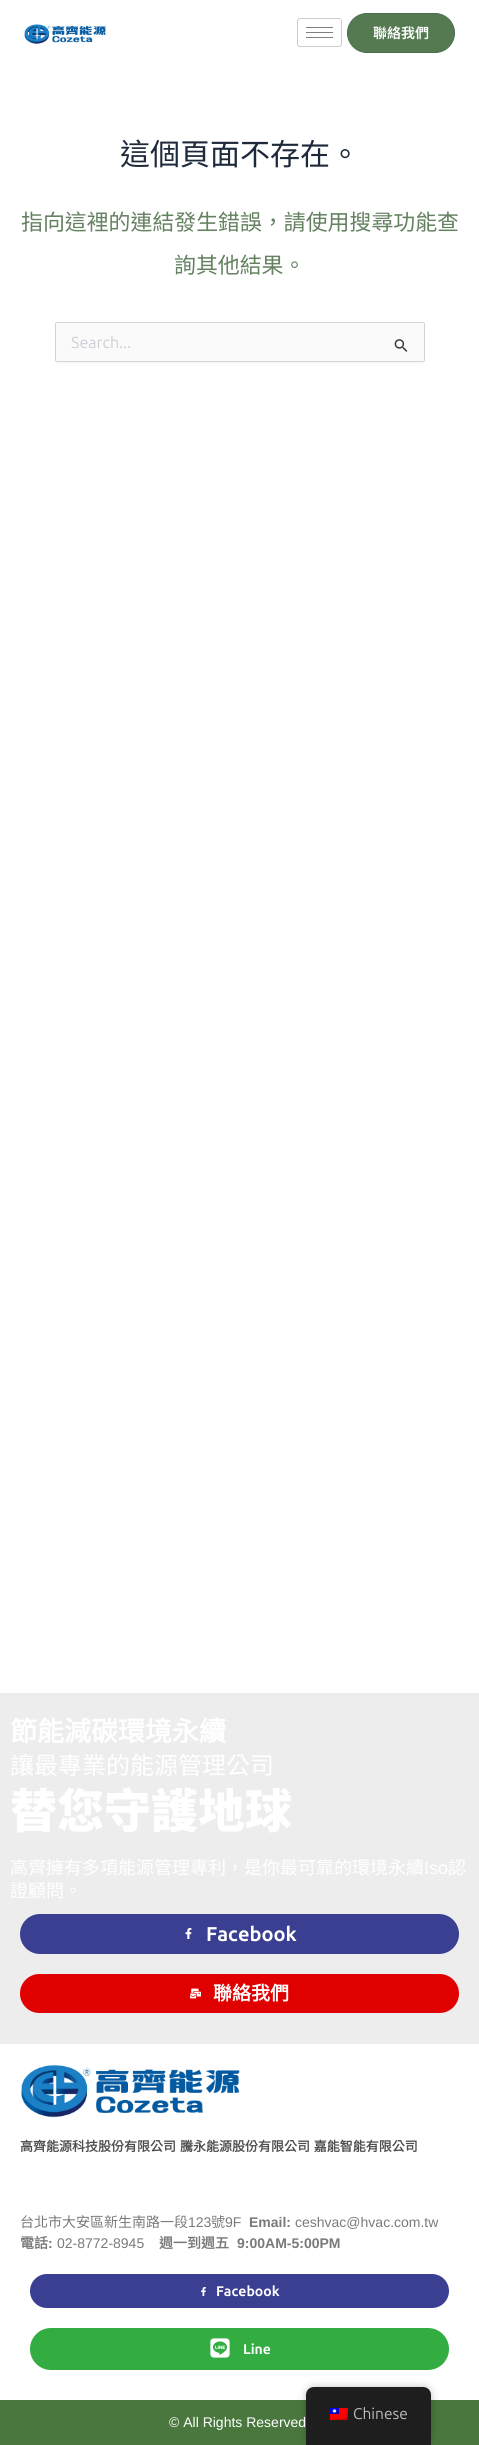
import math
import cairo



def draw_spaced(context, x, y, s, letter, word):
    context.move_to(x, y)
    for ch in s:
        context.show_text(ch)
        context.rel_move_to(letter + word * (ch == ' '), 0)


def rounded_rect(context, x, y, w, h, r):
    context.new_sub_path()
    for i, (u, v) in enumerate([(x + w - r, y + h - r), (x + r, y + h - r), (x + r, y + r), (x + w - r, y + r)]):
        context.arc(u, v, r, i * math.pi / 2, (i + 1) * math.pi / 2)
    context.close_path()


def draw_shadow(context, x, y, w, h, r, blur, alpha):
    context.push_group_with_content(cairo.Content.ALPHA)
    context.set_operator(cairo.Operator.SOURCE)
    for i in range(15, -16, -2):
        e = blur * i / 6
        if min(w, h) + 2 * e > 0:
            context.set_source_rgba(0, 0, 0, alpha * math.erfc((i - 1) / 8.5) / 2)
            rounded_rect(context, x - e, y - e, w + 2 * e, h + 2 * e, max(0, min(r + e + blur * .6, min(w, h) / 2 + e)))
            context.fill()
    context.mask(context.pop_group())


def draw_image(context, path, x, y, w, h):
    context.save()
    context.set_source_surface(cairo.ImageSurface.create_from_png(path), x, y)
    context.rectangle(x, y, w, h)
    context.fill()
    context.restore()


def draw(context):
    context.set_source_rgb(1, 1, 1)
    context.paint()
    draw_image(context, "images/1.png", 24, 24, 82, 20)
    rounded_rect(context, 297.5, 18.5, 44, 28, 2.5)
    context.set_source_rgba(0, 0, 0, 0.2)
    context.set_line_width(1)
    context.stroke()
    context.set_source_rgb(128 / 255, 128 / 255, 128 / 255)
    context.rectangle(306, 27, 27, 1)
    context.fill()
    context.rectangle(306, 32, 27, 1)
    context.fill()
    context.rectangle(306, 37, 27, 1)
    context.fill()
    context.set_source_rgb(85 / 255, 122 / 255, 81 / 255)
    rounded_rect(context, 347.5, 13.5, 107, 39, 19.5)
    context.fill_preserve()
    context.set_source_rgb(72 / 255, 111 / 255, 79 / 255)
    context.stroke()
    context.set_source_rgb(0, 0, 0)
    draw_shadow(context, 55, 323, 370, 40, 2, 1, 0.05)
    context.set_source_rgb(250 / 255, 250 / 255, 250 / 255)
    rounded_rect(context, 55.5, 322.5, 369, 39, 1.5)
    context.fill_preserve()
    context.set_source_rgb(209 / 255, 213 / 255, 219 / 255)
    context.stroke()
    draw_image(context, "images/2.png", 394, 339, 14, 13)
    context.set_source_rgb(237 / 255, 237 / 255, 237 / 255)
    context.rectangle(0, 1693, 479, 351)
    context.fill()
    context.set_source_rgb(59 / 255, 63 / 255, 146 / 255)
    rounded_rect(context, 20, 1914, 439, 40, 20)
    context.fill()
    draw_image(context, "images/3.png", 185, 1928, 7, 11)
    context.set_source_rgb(224 / 255, 0, 0)
    rounded_rect(context, 20, 1974, 439, 39, 19.5)
    context.fill()
    draw_image(context, "images/4.png", 190, 1988, 11, 11)
    draw_image(context, "images/5.png", 21, 2064, 219, 54)
    context.set_source_rgb(59 / 255, 63 / 255, 146 / 255)
    rounded_rect(context, 30, 2274, 419, 34, 17)
    context.fill()
    draw_image(context, "images/6.png", 201, 2287, 5, 9)
    context.set_source_rgb(51 / 255, 173 / 255, 66 / 255)
    rounded_rect(context, 30, 2328, 419, 42, 21)
    context.fill()
    draw_image(context, "images/7.png", 210, 2338, 20, 20)
    context.set_source_rgb(73 / 255, 119 / 255, 61 / 255)
    context.rectangle(0, 2400, 479, 45)
    context.fill()
    context.set_source_rgb(0, 0, 0)
    draw_shadow(context, 306, 2387, 125, 58, 8, 4, 0.25)
    context.set_source_rgb(30 / 255, 30 / 255, 30 / 255)
    context.new_path()
    context.move_to(314, 2387)
    context.line_to(423, 2387)
    context.curve_to(427.5, 2387, 431, 2390.5, 431, 2395)
    context.line_to(431, 2445)
    context.line_to(306, 2445)
    context.line_to(306, 2395)
    context.curve_to(306, 2390.5, 309.5, 2387, 314, 2387)
    context.close_path()
    context.fill()
    draw_image(context, "images/8.png", 330, 2408, 18, 12)
    context.select_font_face("Noto Sans TC SemiBold")
    context.set_font_size(14)
    context.set_source_rgb(1, 1, 1)
    context.move_to(373, 38)
    context.show_text("聯絡我們")
    context.select_font_face("Noto Sans CJK TC")
    context.set_font_size(30)
    context.set_source_rgb(30 / 255, 41 / 255, 59 / 255)
    context.move_to(120, 165)
    context.show_text("這個頁面不存在。")
    context.set_font_size(21.9)
    context.set_source_rgb(100 / 255, 129 / 255, 96 / 255)
    context.move_to(21, 230)
    context.show_text("指向這裡的連結發生錯誤，請使用搜尋功能查")
    context.move_to(174, 273)
    context.show_text("詢其他結果。")
    context.select_font_face("Ubuntu")
    context.set_font_size(16)
    context.set_source_rgb(203 / 255, 207 / 255, 213 / 255)
    context.move_to(71, 348)
    context.show_text("Search...")
    context.select_font_face("Noto Sans CJK TC", cairo.FontSlant.NORMAL, cairo.FontWeight.BOLD)
    context.set_font_size(27)
    context.set_source_rgb(1, 1, 1)
    context.move_to(10, 1741)
    context.show_text("節能減碳環境永續")
    context.select_font_face("Noto Sans CJK TC")
    context.set_font_size(24)
    context.move_to(10, 1774)
    context.show_text("讓最專業的能源管理公司")
    context.select_font_face("Noto Sans TC Black")
    context.set_font_size(47)
    context.move_to(10, 1828)
    context.show_text("替您守護地球")
    context.select_font_face("Noto Sans CJK TC")
    context.set_font_size(18)
    context.move_to(10, 1874)
    context.show_text("高齊擁有多項能源管理專利，是你最可靠的環境永續")
    context.select_font_face("Liberation Sans")
    context.move_to(424, 1874)
    context.show_text("Iso")
    context.select_font_face("Noto Sans CJK TC")
    context.move_to(448, 1874)
    context.show_text("認")
    context.move_to(10, 1897)
    context.show_text("證顧問。")
    context.select_font_face("Ubuntu", cairo.FontSlant.NORMAL, cairo.FontWeight.BOLD)
    context.set_font_size(20)
    context.move_to(206, 1941)
    context.show_text("Facebook")
    context.select_font_face("Noto Sans CJK TC", cairo.FontSlant.NORMAL, cairo.FontWeight.BOLD)
    context.set_font_size(19)
    context.move_to(213, 2000)
    context.show_text("聯絡我們")
    context.set_font_size(13)
    context.set_source_rgb(78 / 255, 78 / 255, 78 / 255)
    draw_spaced(context, 20, 2151, "高齊能源科技股份有限公司 騰永能源股份有限公司 嘉能智能有限公司", 0, 1)
    context.select_font_face("Noto Sans CJK TC")
    context.set_font_size(14)
    context.set_source_rgb(122 / 255, 122 / 255, 122 / 255)
    context.move_to(20, 2227)
    context.show_text("台北市大安區新生南路一段")
    context.select_font_face("Liberation Sans")
    context.move_to(188, 2227)
    context.show_text("123")
    context.select_font_face("Noto Sans CJK TC")
    context.move_to(211, 2227)
    context.show_text("號")
    context.select_font_face("Liberation Sans")
    context.move_to(225, 2227)
    context.show_text("9F")
    context.select_font_face("Liberation Sans", cairo.FontSlant.NORMAL, cairo.FontWeight.BOLD)
    context.move_to(249, 2227)
    context.show_text("Email:")
    context.select_font_face("Liberation Sans")
    context.move_to(295, 2227)
    context.show_text("ceshvac@hvac.com.tw")
    context.select_font_face("Noto Sans CJK TC", cairo.FontSlant.NORMAL, cairo.FontWeight.BOLD)
    context.move_to(20, 2248)
    context.show_text("電話")
    context.select_font_face("Liberation Sans", cairo.FontSlant.NORMAL, cairo.FontWeight.BOLD)
    context.move_to(48, 2248)
    context.show_text(":")
    context.select_font_face("Liberation Sans")
    context.move_to(57, 2248)
    context.show_text("02-8772-8945")
    context.select_font_face("Noto Sans CJK TC", cairo.FontSlant.NORMAL, cairo.FontWeight.BOLD)
    context.move_to(159, 2248)
    context.show_text("週一到週五")
    context.select_font_face("Liberation Sans", cairo.FontSlant.NORMAL, cairo.FontWeight.BOLD)
    context.move_to(237, 2248)
    context.show_text("9:00AM-5:00PM")
    context.select_font_face("Ubuntu", cairo.FontSlant.NORMAL, cairo.FontWeight.BOLD)
    context.set_source_rgb(1, 1, 1)
    context.move_to(216, 2296)
    context.show_text("Facebook")
    context.move_to(243, 2354)
    context.show_text("Line")
    context.select_font_face("Liberation Sans")
    context.move_to(169, 2427)
    context.show_text("© All Rights Reserved")
    context.select_font_face("Ubuntu")
    context.set_font_size(15.5)
    context.set_source_rgb(189 / 255, 189 / 255, 189 / 255)
    context.move_to(353, 2419)
    context.show_text("Chinese")


surface = cairo.ImageSurface(cairo.Format.RGB24, 479, 2445)
context = cairo.Context(surface)
options = cairo.FontOptions()
options.set_hint_metrics(cairo.HintMetrics.OFF)
options.set_hint_style(cairo.HintStyle.NONE)
context.set_font_options(options)
context.set_miter_limit(4)
draw(context)
surface.write_to_png("out.png")
